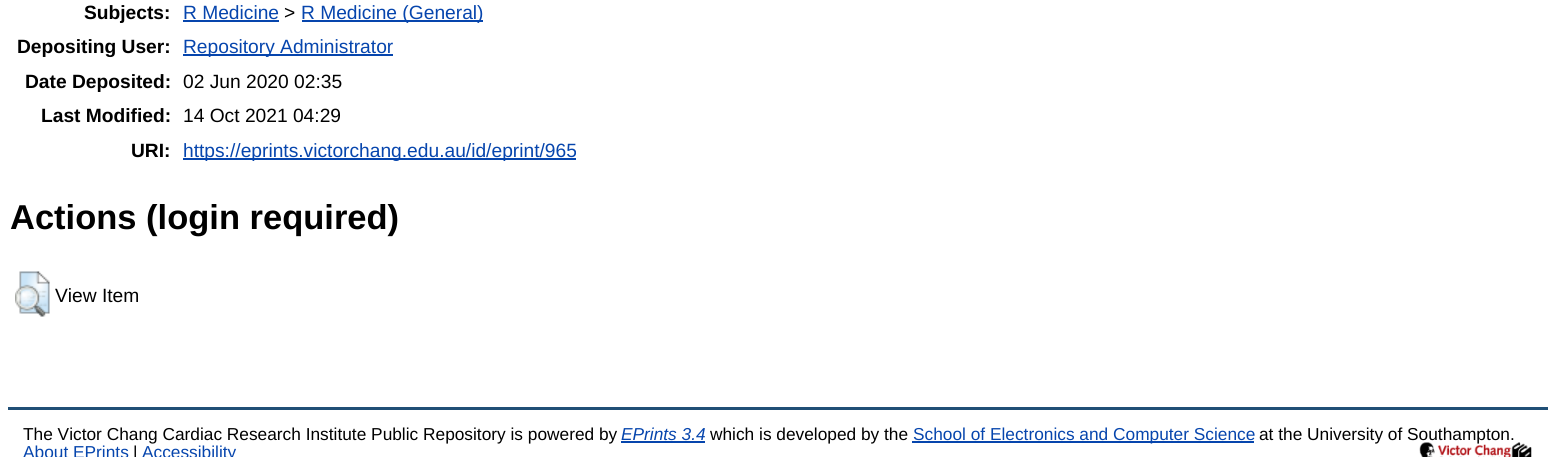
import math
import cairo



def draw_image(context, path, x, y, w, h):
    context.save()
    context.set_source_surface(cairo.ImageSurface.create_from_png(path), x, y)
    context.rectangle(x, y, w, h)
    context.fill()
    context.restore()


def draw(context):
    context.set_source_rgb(1, 1, 1)
    context.paint()
    context.set_source_rgb(6 / 255, 69 / 255, 173 / 255)
    context.rectangle(183, 20, 96, 2)
    context.fill()
    context.rectangle(302, 20, 181, 2)
    context.fill()
    context.rectangle(183, 54, 210, 2)
    context.fill()
    context.rectangle(183, 158, 393, 2)
    context.fill()
    draw_image(context, "images/1.png", 15, 271, 35, 46)
    context.set_source_rgb(32 / 255, 79 / 255, 118 / 255)
    context.rectangle(8, 407, 1540, 3)
    context.fill()
    context.set_source_rgb(6 / 255, 69 / 255, 173 / 255)
    context.rectangle(621, 441, 84, 2)
    context.fill()
    context.rectangle(912, 441, 342, 2)
    context.fill()
    draw_image(context, "images/2.png", 1419, 442, 92, 15)
    draw_image(context, "images/3.png", 1511, 442, 21, 15)
    context.select_font_face("Liberation Sans", cairo.FontSlant.NORMAL, cairo.FontWeight.BOLD)
    context.set_font_size(19.2)
    context.set_source_rgb(0, 0, 0)
    context.move_to(84, 19)
    context.show_text("Subjects:")
    context.select_font_face("Liberation Sans")
    context.set_source_rgb(6 / 255, 69 / 255, 173 / 255)
    context.move_to(183, 19)
    context.show_text("R Medicine")
    context.set_source_rgb(0, 0, 0)
    context.move_to(284, 19)
    context.show_text(">")
    context.set_source_rgb(6 / 255, 69 / 255, 173 / 255)
    context.move_to(301, 19)
    context.show_text("R Medicine (General)")
    context.select_font_face("Liberation Sans", cairo.FontSlant.NORMAL, cairo.FontWeight.BOLD)
    context.set_source_rgb(0, 0, 0)
    context.move_to(17, 53)
    context.show_text("Depositing User:")
    context.select_font_face("Liberation Sans")
    context.set_source_rgb(6 / 255, 69 / 255, 173 / 255)
    context.move_to(183, 53)
    context.show_text("Repository Administrator")
    context.select_font_face("Liberation Sans", cairo.FontSlant.NORMAL, cairo.FontWeight.BOLD)
    context.set_source_rgb(0, 0, 0)
    context.move_to(25, 88)
    context.show_text("Date Deposited:")
    context.select_font_face("Liberation Sans")
    context.move_to(183, 88)
    context.show_text("02 Jun 2020 02:35")
    context.select_font_face("Liberation Sans", cairo.FontSlant.NORMAL, cairo.FontWeight.BOLD)
    context.move_to(41, 122)
    context.show_text("Last Modified:")
    context.select_font_face("Liberation Sans")
    context.move_to(183, 122)
    context.show_text("14 Oct 2021 04:29")
    context.select_font_face("Liberation Sans", cairo.FontSlant.NORMAL, cairo.FontWeight.BOLD)
    context.move_to(131, 157)
    context.show_text("URI:")
    context.select_font_face("Liberation Sans")
    context.set_source_rgb(6 / 255, 69 / 255, 173 / 255)
    context.move_to(183, 157)
    context.show_text("https://eprints.victorchang.edu.au/id/eprint/965")
    context.select_font_face("Liberation Sans", cairo.FontSlant.NORMAL, cairo.FontWeight.BOLD)
    context.set_font_size(34.5)
    context.set_source_rgb(0, 0, 0)
    context.move_to(10, 229)
    context.show_text("Actions (login required)")
    context.select_font_face("Liberation Sans")
    context.set_font_size(19.2)
    context.move_to(55, 302)
    context.show_text("View Item")
    context.set_font_size(17.3)
    context.move_to(23, 440)
    context.show_text("The Victor Chang Cardiac Research Institute Public Repository is powered by")
    context.select_font_face("Liberation Sans", cairo.FontSlant.ITALIC)
    context.set_source_rgb(6 / 255, 69 / 255, 173 / 255)
    context.move_to(621, 440)
    context.show_text("EPrints 3.4")
    context.select_font_face("Liberation Sans")
    context.set_source_rgb(0, 0, 0)
    context.move_to(710, 440)
    context.show_text("which is developed by the")
    context.set_source_rgb(6 / 255, 69 / 255, 173 / 255)
    context.move_to(913, 440)
    context.show_text("School of Electronics and Computer Science")
    context.set_source_rgb(0, 0, 0)
    context.move_to(1259, 440)
    context.show_text("at the University of Southampton.")
    context.set_source_rgb(6 / 255, 69 / 255, 173 / 255)
    context.move_to(23, 458)
    context.show_text("About EPrints")
    context.set_source_rgb(0, 0, 0)
    context.move_to(133, 458)
    context.show_text("|")
    context.set_source_rgb(6 / 255, 69 / 255, 173 / 255)
    context.move_to(142, 458)
    context.show_text("Accessibility")


surface = cairo.ImageSurface(cairo.Format.RGB24, 1555, 457)
context = cairo.Context(surface)
options = cairo.FontOptions()
options.set_hint_metrics(cairo.HintMetrics.OFF)
options.set_hint_style(cairo.HintStyle.NONE)
context.set_font_options(options)
context.set_miter_limit(4)
draw(context)
surface.write_to_png("out.png")
